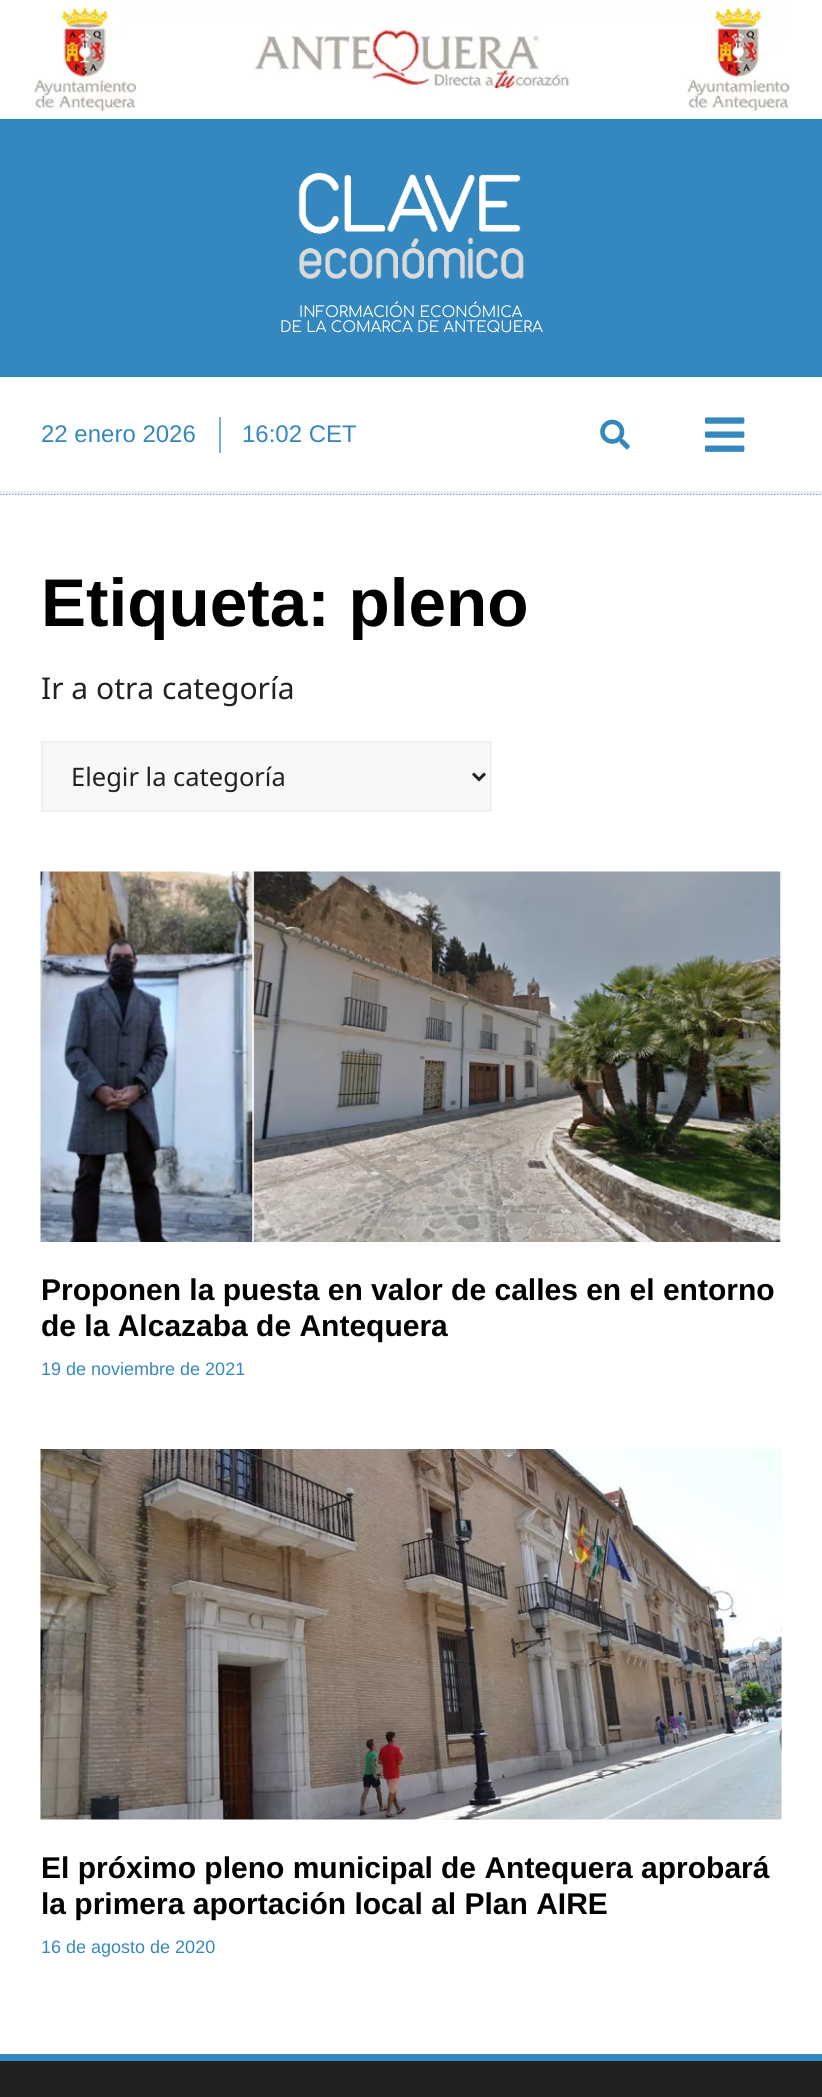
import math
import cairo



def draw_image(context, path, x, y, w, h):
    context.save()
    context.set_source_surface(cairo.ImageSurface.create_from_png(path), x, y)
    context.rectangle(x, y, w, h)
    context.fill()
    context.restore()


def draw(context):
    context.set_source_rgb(1, 1, 1)
    context.paint()
    draw_image(context, "images/1.png", 32, 0, 759, 112)
    context.set_source_rgb(53 / 255, 136 / 255, 191 / 255)
    context.rectangle(0, 119, 822, 258)
    context.fill()
    draw_image(context, "images/2.png", 298, 172, 226, 107)
    context.new_path()
    context.move_to(0, 494)
    context.line_to(822, 494)
    context.set_line_width(1.5)
    context.set_dash([1.5, 1.5])
    context.stroke()
    context.set_source_rgb(122 / 255, 176 / 255, 213 / 255)
    context.rectangle(219, 417, 2, 36)
    context.fill()
    draw_image(context, "images/3.png", 600, 419, 30, 31)
    draw_image(context, "images/4.png", 705, 417, 40, 35)
    context.set_source_rgb(238 / 255, 238 / 255, 238 / 255)
    context.rectangle(0, 491, 822, 3)
    context.fill()
    context.set_source_rgb(247 / 255, 248 / 255, 249 / 255)
    context.rectangle(42, 742, 449, 69)
    context.fill_preserve()
    context.set_source_rgb(240 / 255, 240 / 255, 240 / 255)
    context.set_line_width(2)
    context.set_dash([])
    context.stroke()
    context.new_path()
    context.move_to(473, 773.5)
    context.line_to(479, 779.5)
    context.line_to(485, 773.5)
    context.set_source_rgb(34 / 255, 34 / 255, 34 / 255)
    context.set_line_width(3)
    context.stroke()
    draw_image(context, "images/5.png", 40, 871, 742, 371)
    draw_image(context, "images/6.png", 40, 1449, 742, 371)
    context.set_source_rgb(33 / 255, 33 / 255, 33 / 255)
    context.rectangle(0, 2061, 822, 36)
    context.fill()
    context.set_source_rgb(53 / 255, 136 / 255, 191 / 255)
    context.rectangle(0, 2054, 822, 7)
    context.fill()
    context.select_font_face("Comfortaa")
    context.set_font_size(15)
    context.set_source_rgb(1, 1, 1)
    context.move_to(299, 317)
    context.show_text("INFORMACIÓN ECONÓMICA")
    context.move_to(280, 332)
    context.show_text("DE LA COMARCA DE ANTEQUERA")
    context.select_font_face("Liberation Sans")
    context.set_font_size(24)
    context.set_source_rgb(53 / 255, 136 / 255, 191 / 255)
    context.move_to(41, 442)
    context.show_text("22 enero 2026")
    context.move_to(242, 442)
    context.show_text("16:02 CET")
    context.select_font_face("Liberation Sans", cairo.FontSlant.NORMAL, cairo.FontWeight.BOLD)
    context.set_font_size(67.5)
    context.set_source_rgb(0, 0, 0)
    context.move_to(41, 626)
    context.show_text("Etiqueta: pleno")
    context.select_font_face("Noto Sans")
    context.set_font_size(30)
    context.set_source_rgb(34 / 255, 34 / 255, 34 / 255)
    context.move_to(41, 699)
    context.show_text("Ir a otra categoría")
    context.set_font_size(25.5)
    context.move_to(71, 786)
    context.show_text("Elegir la categoría")
    context.select_font_face("Liberation Sans", cairo.FontSlant.NORMAL, cairo.FontWeight.BOLD)
    context.set_font_size(30)
    context.set_source_rgb(0, 0, 0)
    context.move_to(41, 1300)
    context.show_text("Proponen la puesta en valor de calles en el entorno")
    context.move_to(41, 1336)
    context.show_text("de la Alcazaba de Antequera")
    context.select_font_face("Liberation Sans")
    context.set_font_size(18)
    context.set_source_rgb(53 / 255, 136 / 255, 191 / 255)
    context.move_to(41, 1375)
    context.show_text("19 de noviembre de 2021")
    context.select_font_face("Liberation Sans", cairo.FontSlant.NORMAL, cairo.FontWeight.BOLD)
    context.set_font_size(30)
    context.set_source_rgb(0, 0, 0)
    context.move_to(41, 1878)
    context.show_text("El próximo pleno municipal de Antequera aprobará")
    context.move_to(41, 1914)
    context.show_text("la primera aportación local al Plan AIRE")
    context.select_font_face("Liberation Sans")
    context.set_font_size(18)
    context.set_source_rgb(53 / 255, 136 / 255, 191 / 255)
    context.move_to(41, 1953)
    context.show_text("16 de agosto de 2020")


surface = cairo.ImageSurface(cairo.Format.RGB24, 822, 2097)
context = cairo.Context(surface)
options = cairo.FontOptions()
options.set_hint_metrics(cairo.HintMetrics.OFF)
options.set_hint_style(cairo.HintStyle.NONE)
context.set_font_options(options)
context.set_miter_limit(4)
draw(context)
surface.write_to_png("out.png")
